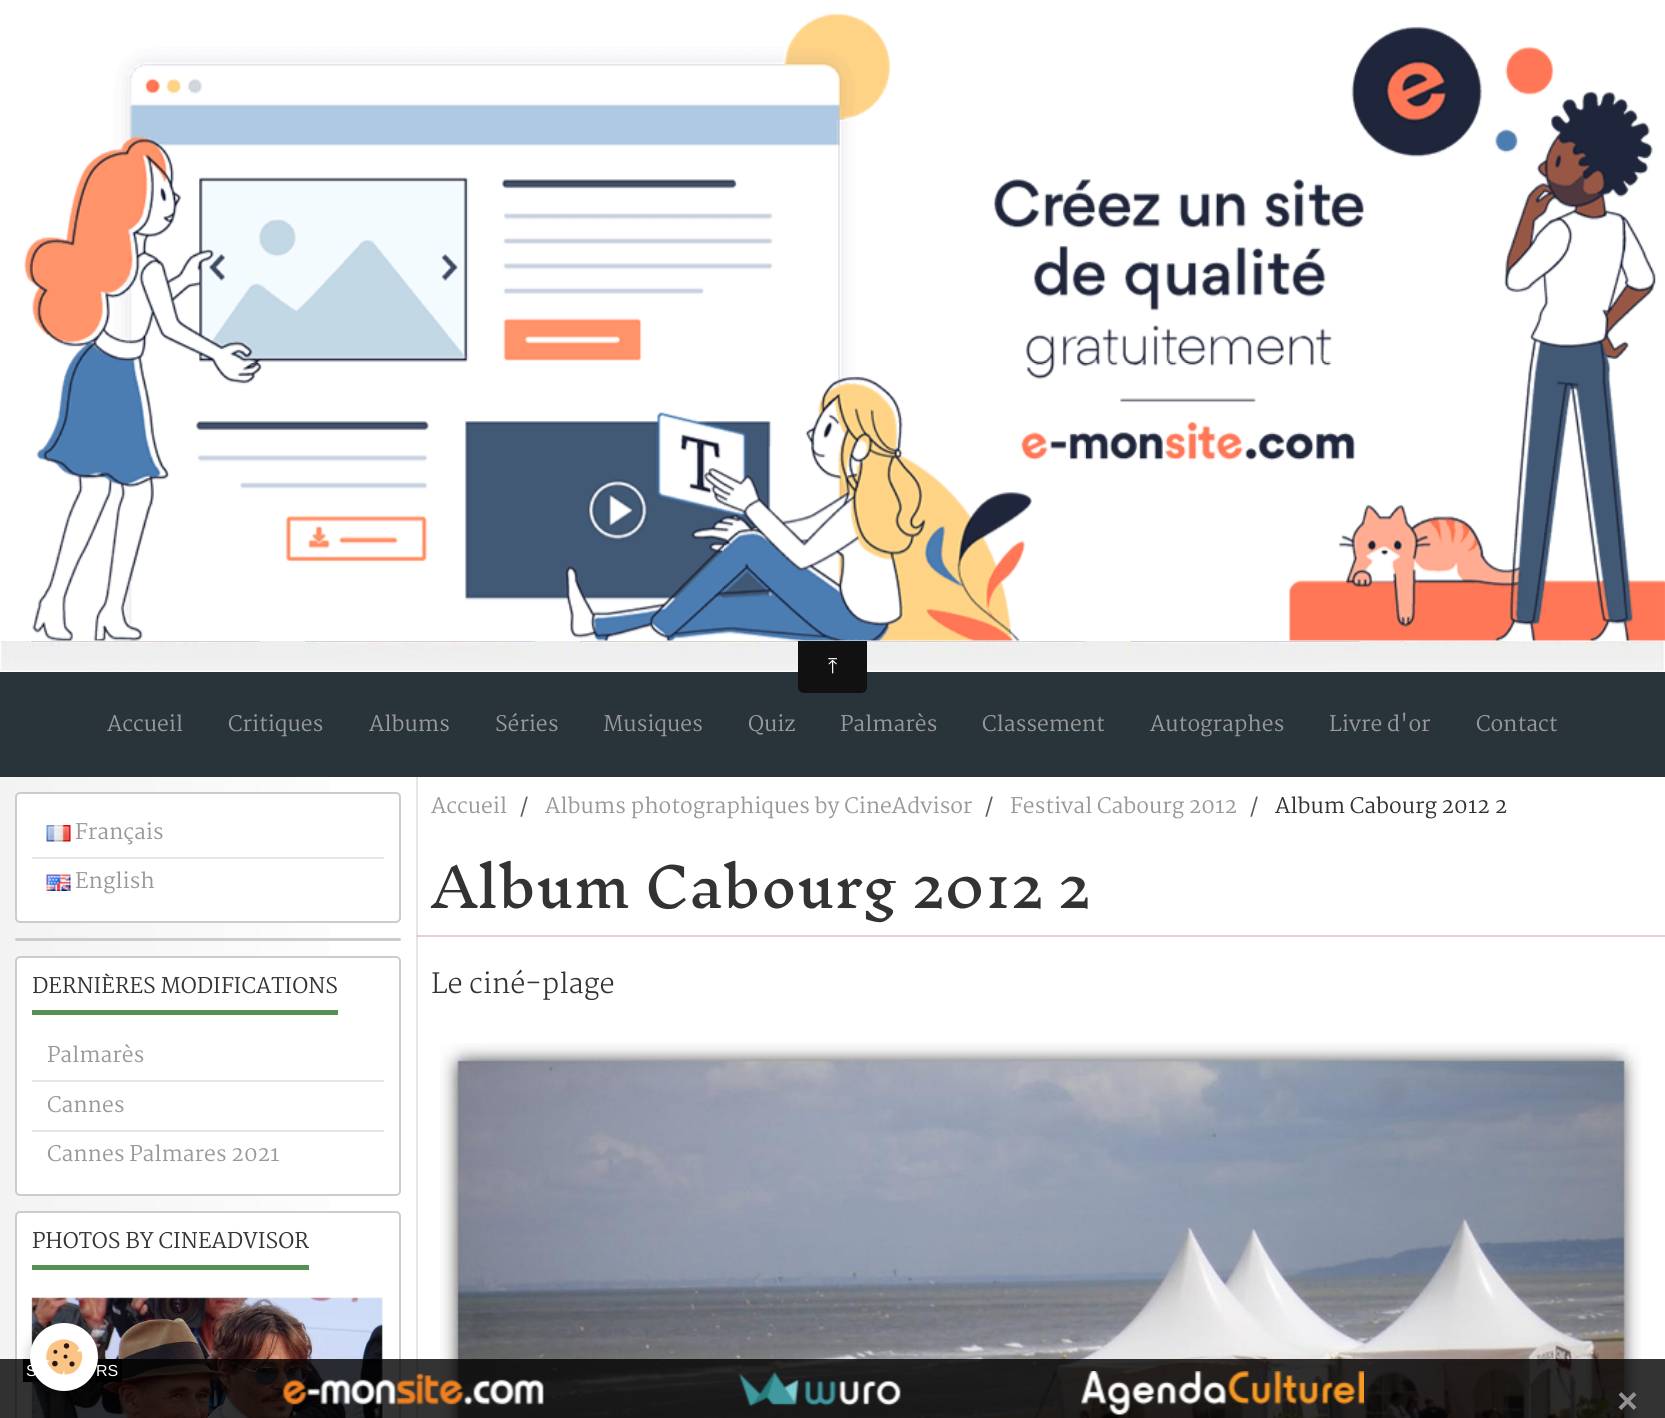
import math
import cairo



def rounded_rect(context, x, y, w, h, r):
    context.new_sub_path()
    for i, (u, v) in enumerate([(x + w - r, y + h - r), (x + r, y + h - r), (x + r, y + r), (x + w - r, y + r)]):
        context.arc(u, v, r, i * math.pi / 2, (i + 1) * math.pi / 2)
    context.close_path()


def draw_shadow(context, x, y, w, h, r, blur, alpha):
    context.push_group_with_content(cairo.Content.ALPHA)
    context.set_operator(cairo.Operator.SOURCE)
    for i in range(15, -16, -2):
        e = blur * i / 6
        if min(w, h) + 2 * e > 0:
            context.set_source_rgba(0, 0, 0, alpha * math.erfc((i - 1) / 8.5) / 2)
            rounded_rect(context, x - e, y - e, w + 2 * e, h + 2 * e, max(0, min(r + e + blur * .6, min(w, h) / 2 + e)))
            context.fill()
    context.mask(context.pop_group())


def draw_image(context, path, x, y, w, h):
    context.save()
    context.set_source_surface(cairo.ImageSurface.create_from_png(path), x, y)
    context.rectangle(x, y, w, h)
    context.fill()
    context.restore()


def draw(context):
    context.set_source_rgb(1, 1, 1)
    context.paint()
    context.set_source_rgb(230 / 255, 230 / 255, 230 / 255)
    context.rectangle(416, 777, 2, 641)
    context.fill()
    draw_image(context, "images/1.png", 0, 641, 1665, 31)
    draw_image(context, "images/2.png", 24, 14, 1641, 627)
    context.set_source_rgb(41 / 255, 52 / 255, 58 / 255)
    context.rectangle(0, 672, 1665, 105)
    context.fill()
    context.set_source_rgb(17 / 255, 17 / 255, 17 / 255)
    context.new_path()
    context.move_to(798, 641)
    context.line_to(867, 641)
    context.line_to(867, 687)
    context.curve_to(867, 690.5, 864.5, 693, 861, 693)
    context.line_to(804, 693)
    context.curve_to(800.5, 693, 798, 690.5, 798, 687)
    context.close_path()
    context.fill()
    gradient = cairo.LinearGradient(0, 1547, 416, 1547)
    gradient.add_color_stop_rgba(0, 243 / 255, 243 / 255, 243 / 255, 1)
    gradient.add_color_stop_rgba(1, 1, 1, 1, 1)
    context.set_source(gradient)
    context.rectangle(0, 777, 329, 641)
    context.fill()
    context.set_source_rgb(1, 1, 1)
    rounded_rect(context, 15, 792, 386, 131, 5)
    context.fill()
    rounded_rect(context, 16, 793, 384, 129, 4)
    context.set_source_rgba(0, 0, 0, 0.2)
    context.stroke()
    context.set_source_rgb(230 / 255, 230 / 255, 230 / 255)
    context.rectangle(32, 857, 352, 2)
    context.fill()
    draw_image(context, "images/3.png", 46, 825, 25, 17)
    draw_image(context, "images/4.png", 46, 874, 25, 17)
    context.set_source_rgb(1, 1, 1)
    rounded_rect(context, 15, 938, 386, 3, 1.5)
    context.fill()
    context.set_source_rgba(0, 0, 0, 0.2)
    rounded_rect(context, 15, 938, 386, 3, 1.5)
    context.fill()
    context.set_source_rgb(1, 1, 1)
    rounded_rect(context, 15, 956, 386, 240, 5)
    context.fill()
    rounded_rect(context, 16, 957, 384, 238, 4)
    context.set_source_rgba(0, 0, 0, 0.2)
    context.stroke()
    context.set_source_rgb(87 / 255, 143 / 255, 86 / 255)
    context.rectangle(32, 1010, 306, 5)
    context.fill()
    context.set_source_rgb(230 / 255, 230 / 255, 230 / 255)
    context.rectangle(32, 1080, 352, 2)
    context.fill()
    context.rectangle(32, 1130, 352, 2)
    context.fill()
    context.set_source_rgb(1, 1, 1)
    rounded_rect(context, 15, 1211, 386, 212, 5)
    context.fill()
    rounded_rect(context, 16, 1212, 384, 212, 4)
    context.set_source_rgba(0, 0, 0, 0.2)
    context.stroke()
    context.set_source_rgb(87 / 255, 143 / 255, 86 / 255)
    context.rectangle(32, 1265, 277, 5)
    context.fill()
    draw_image(context, "images/5.png", 31, 1297, 352, 121)
    context.set_source_rgb(237 / 255, 206 / 255, 214 / 255)
    context.rectangle(417, 935, 1248, 2)
    context.fill()
    context.set_source_rgb(213 / 255, 185 / 255, 193 / 255)
    context.rectangle(417, 935, 1, 2)
    context.fill()
    draw_image(context, "images/6.png", 440, 1043, 1201, 375)
    context.set_source_rgba(0, 0, 0, 0.8)
    context.rectangle(0, 1359, 1665, 59)
    context.fill()
    context.set_source_rgb(0, 0, 0)
    context.rectangle(23, 1359, 99, 23)
    context.fill()
    context.set_source_rgb(0, 0, 0)
    draw_shadow(context, 30, 1328, 68, 67, 33.5, 7.5, 0.24)
    context.set_source_rgb(1, 1, 1)
    context.arc(64, 1357, 34, 0, 2 * math.pi)
    context.fill()
    draw_image(context, "images/7.png", 46, 1339, 37, 36)
    draw_image(context, "images/8.png", 282, 1373, 262, 32)
    draw_image(context, "images/9.png", 738, 1372, 163, 34)
    draw_image(context, "images/10.png", 1081, 1371, 283, 44)
    context.select_font_face("FreeSerif")
    context.set_font_size(21)
    context.move_to(828, 673)
    context.show_text("⤒")
    context.select_font_face("Martel")
    context.set_source_rgb(153 / 255, 153 / 255, 153 / 255)
    context.move_to(107, 731)
    context.show_text("Accueil")
    context.move_to(228, 731)
    context.show_text("Critiques")
    context.move_to(369, 731)
    context.show_text("Albums")
    context.move_to(495, 731)
    context.show_text("Séries")
    context.move_to(603, 731)
    context.show_text("Musiques")
    context.move_to(748, 731)
    context.show_text("Quiz")
    context.move_to(840, 731)
    context.show_text("Palmarès")
    context.move_to(982, 731)
    context.show_text("Classement")
    context.move_to(1150, 731)
    context.show_text("Autographes")
    context.move_to(1329, 731)
    context.show_text("Livre d'or")
    context.move_to(1476, 731)
    context.show_text("Contact")
    context.move_to(75, 839)
    context.show_text("Français")
    context.move_to(75, 888)
    context.show_text("English")
    context.set_source_rgb(51 / 255, 51 / 255, 51 / 255)
    context.move_to(32, 993)
    context.show_text("DERNIÈRES MODIFICATIONS")
    context.set_source_rgb(153 / 255, 153 / 255, 153 / 255)
    context.move_to(47, 1062)
    context.show_text("Palmarès")
    context.move_to(47, 1112)
    context.show_text("Cannes")
    context.move_to(47, 1161)
    context.show_text("Cannes Palmares 2021")
    context.set_source_rgb(51 / 255, 51 / 255, 51 / 255)
    context.move_to(32, 1248)
    context.show_text("PHOTOS BY CINEADVISOR")
    context.set_source_rgb(153 / 255, 153 / 255, 153 / 255)
    context.move_to(431, 813)
    context.show_text("Accueil")
    context.set_source_rgb(92 / 255, 92 / 255, 92 / 255)
    context.move_to(520, 813)
    context.show_text("/")
    context.set_source_rgb(153 / 255, 153 / 255, 153 / 255)
    context.move_to(545, 813)
    context.show_text("Albums photographiques by CineAdvisor")
    context.set_source_rgb(92 / 255, 92 / 255, 92 / 255)
    context.move_to(985, 813)
    context.show_text("/")
    context.set_source_rgb(153 / 255, 153 / 255, 153 / 255)
    context.move_to(1010, 813)
    context.show_text("Festival Cabourg 2012")
    context.set_source_rgb(92 / 255, 92 / 255, 92 / 255)
    context.move_to(1250, 813)
    context.show_text("/")
    context.set_source_rgb(51 / 255, 51 / 255, 51 / 255)
    context.move_to(1275, 813)
    context.show_text("Album Cabourg 2012 2")
    context.select_font_face("Inknut Antiqua")
    context.set_font_size(54)
    context.move_to(431, 908)
    context.show_text("Album Cabourg 2012 2")
    context.select_font_face("Martel Light")
    context.set_font_size(27.25)
    context.move_to(431, 993)
    context.show_text("Le ciné-plage")
    context.select_font_face("Liberation Sans")
    context.set_font_size(16)
    context.set_source_rgb(1, 1, 1)
    context.move_to(26, 1376)
    context.show_text("S")
    context.move_to(96, 1376)
    context.show_text("RS")
    context.select_font_face("Liberation Sans", cairo.FontSlant.NORMAL, cairo.FontWeight.BOLD)
    context.set_font_size(36)
    context.set_source_rgb(146 / 255, 146 / 255, 146 / 255)
    context.move_to(1617, 1413)
    context.show_text("×")


surface = cairo.ImageSurface(cairo.Format.RGB24, 1665, 1418)
context = cairo.Context(surface)
options = cairo.FontOptions()
options.set_hint_metrics(cairo.HintMetrics.OFF)
options.set_hint_style(cairo.HintStyle.NONE)
context.set_font_options(options)
context.set_miter_limit(4)
draw(context)
surface.write_to_png("out.png")
